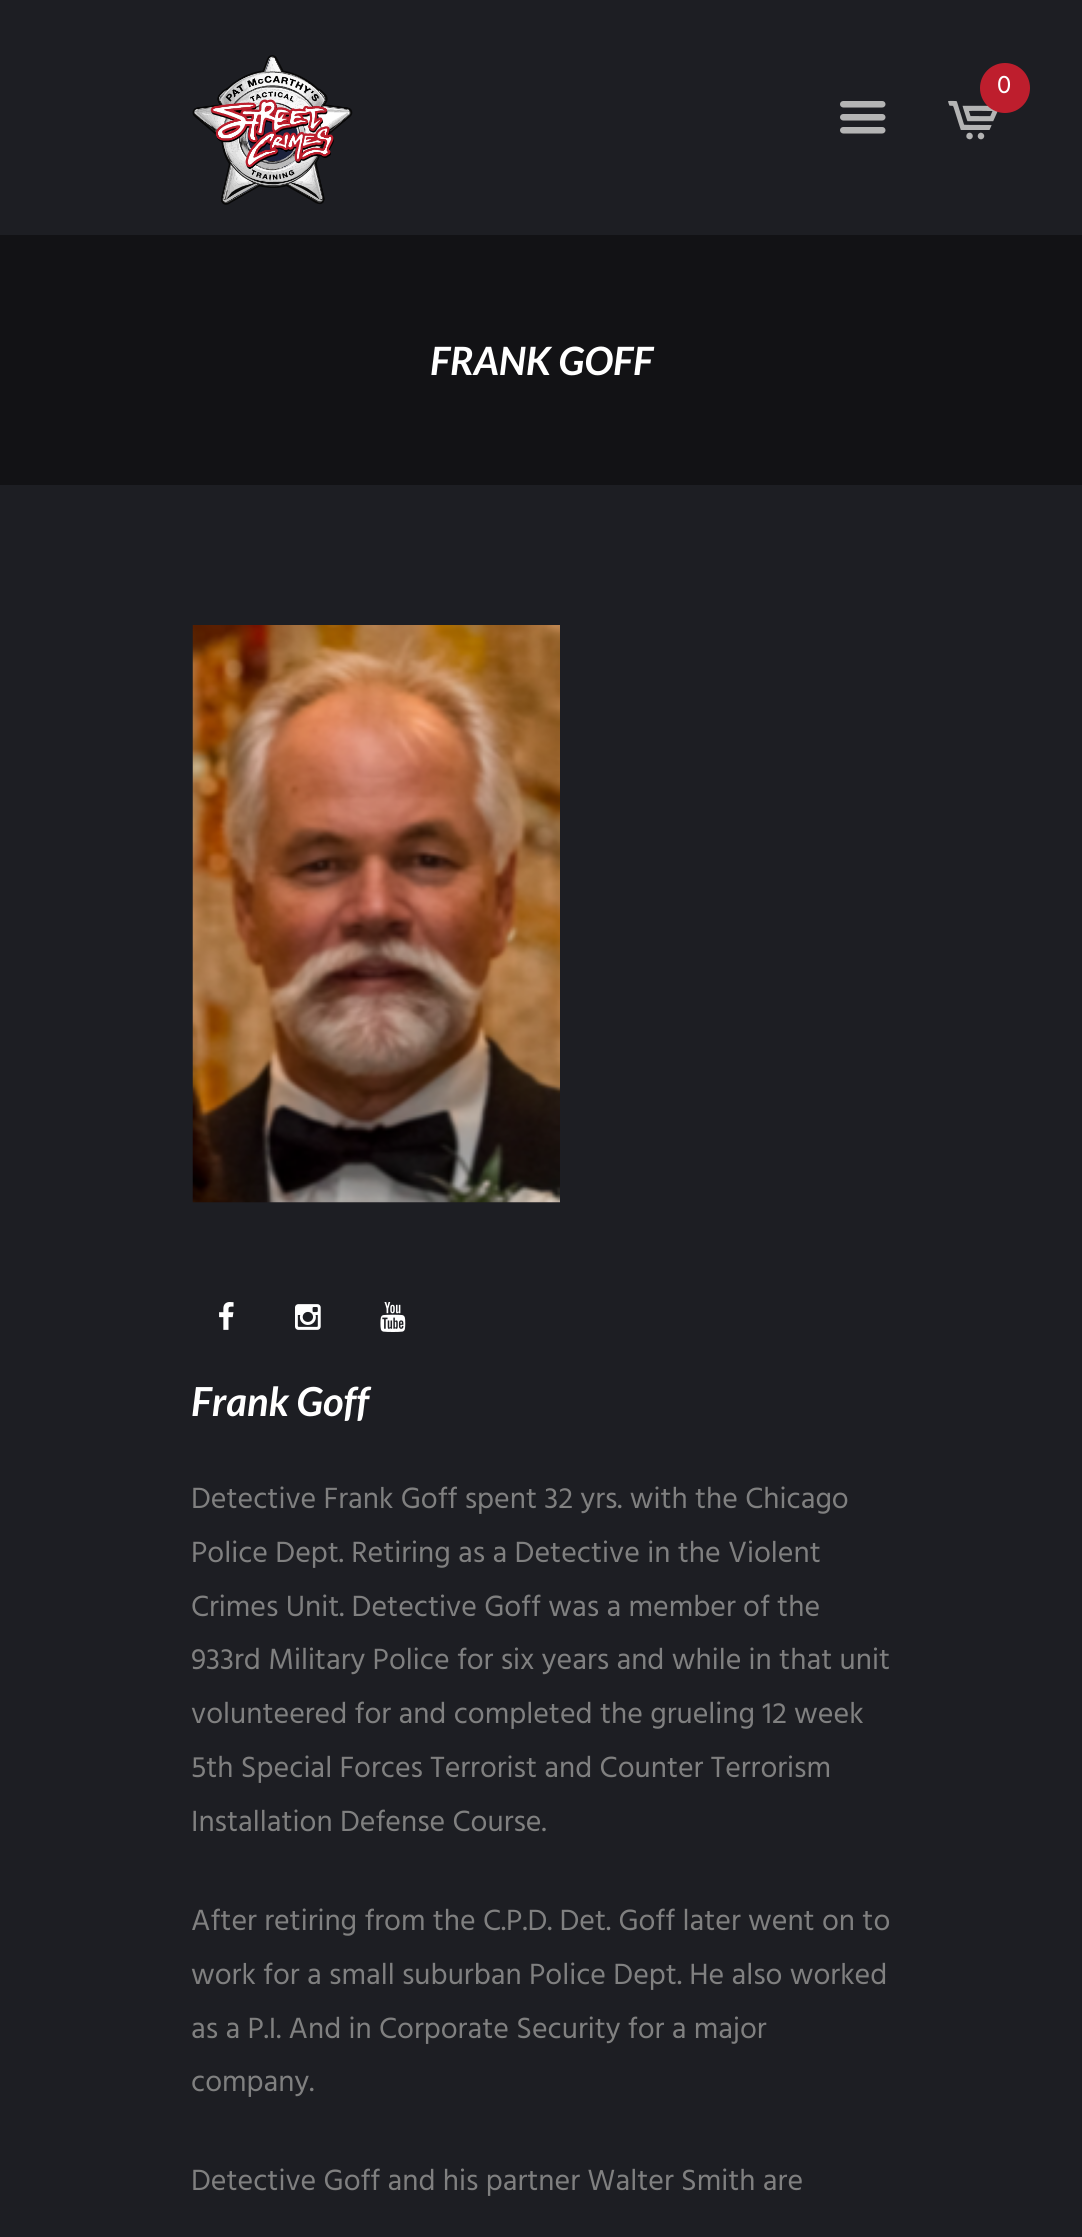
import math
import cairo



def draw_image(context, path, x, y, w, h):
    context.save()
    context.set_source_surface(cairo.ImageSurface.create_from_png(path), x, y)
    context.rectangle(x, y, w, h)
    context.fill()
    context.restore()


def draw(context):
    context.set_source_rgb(29 / 255, 30 / 255, 35 / 255)
    context.paint()
    draw_image(context, "images/1.png", 192, 55, 161, 150)
    draw_image(context, "images/2.png", 948, 100, 50, 40)
    context.set_source_rgb(190 / 255, 30 / 255, 45 / 255)
    context.arc(1005, 88, 25, 0, 2 * math.pi)
    context.fill()
    draw_image(context, "images/3.png", 840, 101, 46, 33)
    context.set_source_rgb(18 / 255, 18 / 255, 21 / 255)
    context.rectangle(0, 235, 1082, 250)
    context.fill()
    draw_image(context, "images/4.png", 192, 625, 368, 578)
    draw_image(context, "images/5.png", 219, 1302, 15, 28)
    draw_image(context, "images/6.png", 295, 1304, 26, 26)
    draw_image(context, "images/7.png", 380, 1302, 26, 30)
    context.select_font_face("Hind")
    context.set_font_size(26)
    context.set_source_rgb(1, 1, 1)
    context.move_to(997, 93)
    context.show_text("0")
    context.select_font_face("Lato", cairo.FontSlant.ITALIC, cairo.FontWeight.BOLD)
    context.set_font_size(39)
    context.move_to(430, 375)
    context.show_text("FRANK GOFF")
    context.set_font_size(40)
    context.move_to(191, 1416)
    context.show_text("Frank Goff")
    context.select_font_face("Hind")
    context.set_font_size(30)
    context.set_source_rgb(128 / 255, 128 / 255, 128 / 255)
    context.move_to(191, 1508)
    context.show_text("Detective Frank Goff spent 32 yrs. with the Chicago")
    context.move_to(191, 1562)
    context.show_text("Police Dept. Retiring as a Detective in the Violent")
    context.move_to(191, 1616)
    context.show_text("Crimes Unit. Detective Goff was a member of the")
    context.move_to(191, 1669)
    context.show_text("933rd Military Police for six years and while in that unit")
    context.move_to(191, 1723)
    context.show_text("volunteered for and completed the grueling 12 week")
    context.move_to(191, 1777)
    context.show_text("5th Special Forces Terrorist and Counter Terrorism")
    context.move_to(191, 1831)
    context.show_text("Installation Defense Course.")
    context.move_to(191, 1930)
    context.show_text("After retiring from the C.P.D. Det. Goff later went on to")
    context.move_to(191, 1984)
    context.show_text("work for a small suburban Police Dept. He also worked")
    context.move_to(191, 2038)
    context.show_text("as a P.I. And in Corporate Security for a major")
    context.move_to(191, 2091)
    context.show_text("company.")
    context.move_to(191, 2190)
    context.show_text("Detective Goff and his partner Walter Smith are")


surface = cairo.ImageSurface(cairo.Format.RGB24, 1082, 2237)
context = cairo.Context(surface)
options = cairo.FontOptions()
options.set_hint_metrics(cairo.HintMetrics.OFF)
options.set_hint_style(cairo.HintStyle.NONE)
context.set_font_options(options)
context.set_miter_limit(4)
draw(context)
surface.write_to_png("out.png")
